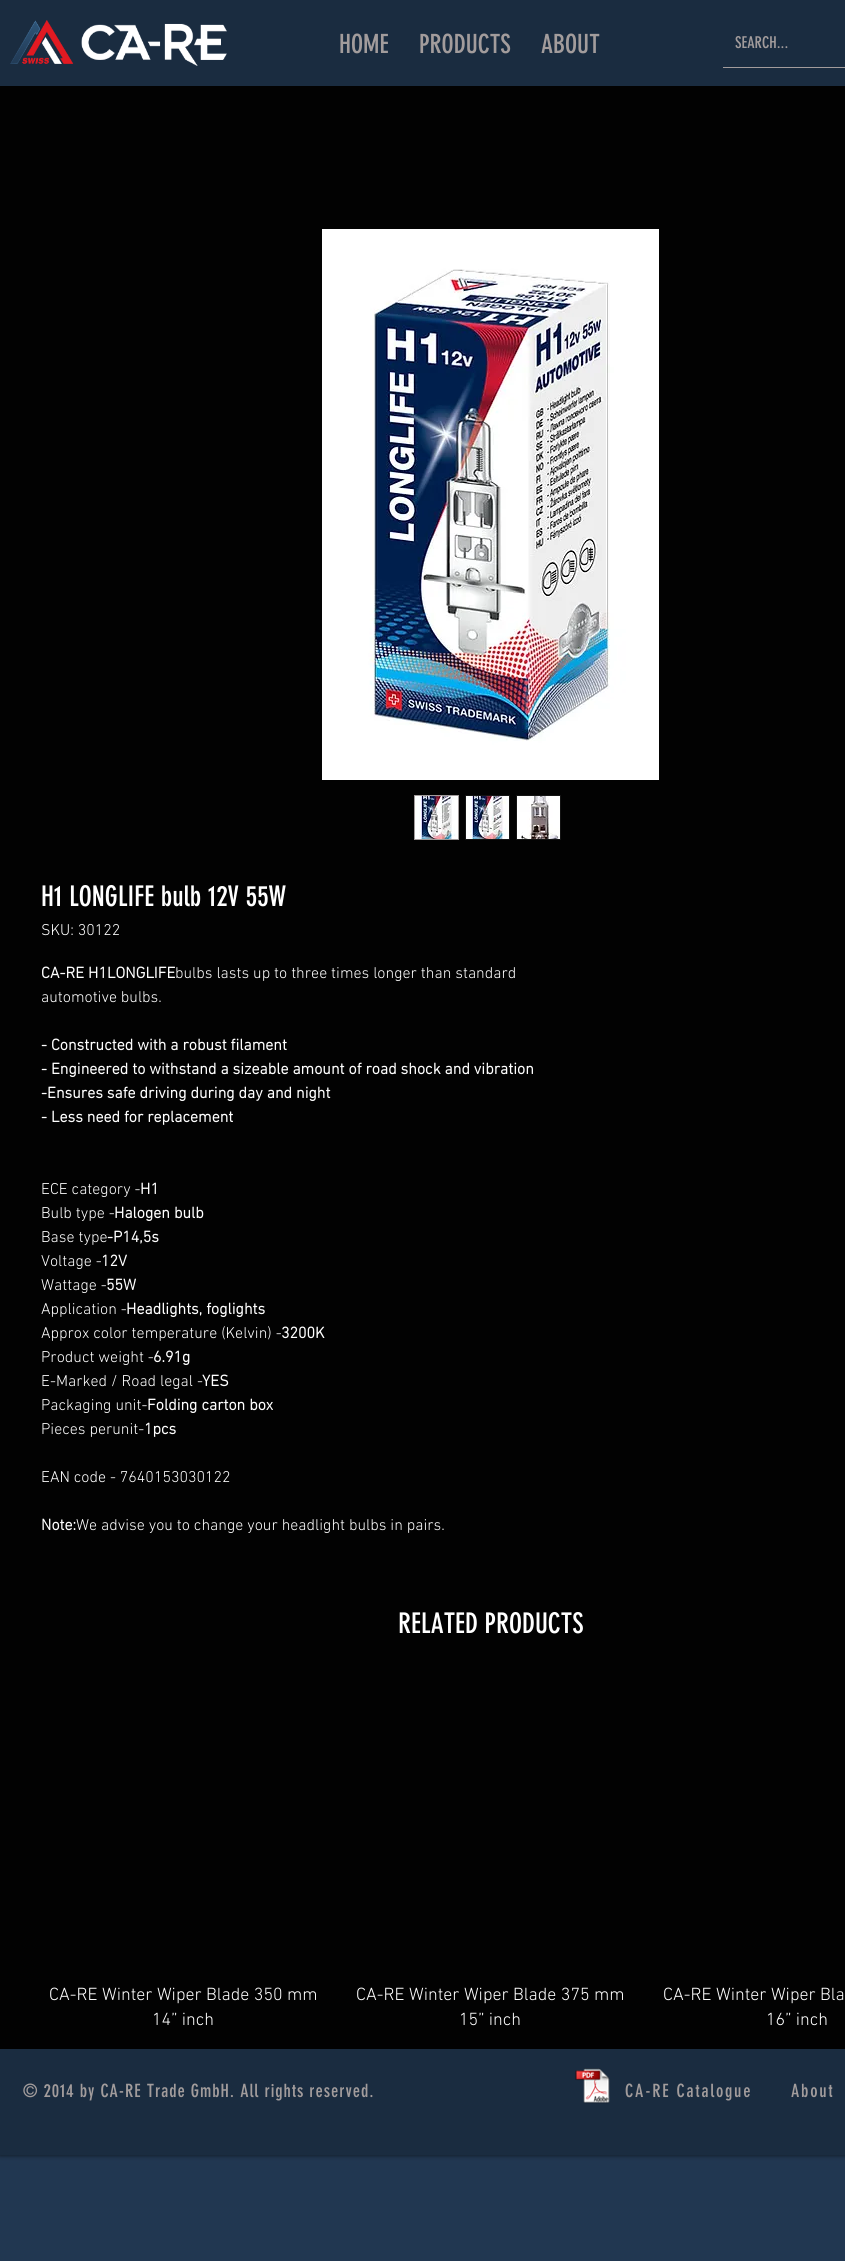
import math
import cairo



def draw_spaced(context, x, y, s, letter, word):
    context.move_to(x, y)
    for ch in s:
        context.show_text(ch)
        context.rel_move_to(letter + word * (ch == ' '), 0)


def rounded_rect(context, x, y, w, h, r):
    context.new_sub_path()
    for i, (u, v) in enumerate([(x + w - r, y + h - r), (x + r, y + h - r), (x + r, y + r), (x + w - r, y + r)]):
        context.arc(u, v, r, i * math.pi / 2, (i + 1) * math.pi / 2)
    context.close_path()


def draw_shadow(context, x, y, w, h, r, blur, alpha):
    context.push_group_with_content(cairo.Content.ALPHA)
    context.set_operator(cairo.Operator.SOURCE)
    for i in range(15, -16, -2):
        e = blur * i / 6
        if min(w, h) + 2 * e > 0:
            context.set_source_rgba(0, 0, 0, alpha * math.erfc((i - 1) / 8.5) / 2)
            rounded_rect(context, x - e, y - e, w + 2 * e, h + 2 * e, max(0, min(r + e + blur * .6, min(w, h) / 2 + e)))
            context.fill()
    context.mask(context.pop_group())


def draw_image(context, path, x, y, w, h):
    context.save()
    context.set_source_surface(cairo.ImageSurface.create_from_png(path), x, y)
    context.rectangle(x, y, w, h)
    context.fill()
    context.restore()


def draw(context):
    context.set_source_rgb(33 / 255, 55 / 255, 81 / 255)
    context.paint()
    context.set_source_rgb(26 / 255, 44 / 255, 64 / 255)
    context.rectangle(0, 0, 845, 86)
    context.fill()
    draw_image(context, "images/1.png", 10, 20, 217, 46)
    context.set_source_rgb(162 / 255, 156 / 255, 156 / 255)
    context.rectangle(723, 67, 122, 1)
    context.fill()
    context.set_source_rgb(2 / 255, 2 / 255, 2 / 255)
    context.rectangle(0, 86, 845, 1963)
    context.fill()
    draw_image(context, "images/2.png", 322, 229, 337, 551)
    context.rectangle(414.5, 795.5, 44, 44)
    context.set_source_rgb(162 / 255, 156 / 255, 156 / 255)
    context.set_line_width(1)
    context.stroke()
    draw_image(context, "images/3.png", 415, 796, 43, 43)
    context.rectangle(465.5, 795.5, 44, 44)
    context.set_source_rgb(20 / 255, 20 / 255, 20 / 255)
    context.stroke()
    draw_image(context, "images/4.png", 466, 796, 43, 43)
    context.rectangle(516.5, 795.5, 44, 44)
    context.stroke()
    draw_image(context, "images/5.png", 517, 796, 43, 43)
    context.set_source_rgb(2 / 255, 2 / 255, 2 / 255)
    draw_shadow(context, 0, 2049, 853, 106, 0, 2.5, 0.7)
    context.set_source_rgb(26 / 255, 44 / 255, 64 / 255)
    context.rectangle(0, 2049, 845, 106)
    context.fill()
    draw_image(context, "images/6.png", 575, 2068, 35, 36)
    context.select_font_face("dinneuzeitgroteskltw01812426")
    context.set_font_size(26)
    context.set_source_rgb(162 / 255, 156 / 255, 156 / 255)
    context.move_to(339, 53)
    context.show_text("HOME")
    context.move_to(419, 53)
    context.show_text("PRODUCTS")
    context.move_to(541, 53)
    context.show_text("ABOUT")
    context.set_font_size(16)
    context.move_to(735, 48)
    context.show_text("SEARCH...")
    context.set_font_size(28)
    context.set_source_rgb(1, 1, 1)
    context.move_to(41, 906)
    context.show_text("H1 LONGLIFE bulb 12V 55W")
    context.select_font_face("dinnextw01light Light")
    context.set_font_size(16)
    context.move_to(41, 935)
    context.show_text("SKU: 30122")
    context.select_font_face("dinnextw01light", cairo.FontSlant.NORMAL, cairo.FontWeight.BOLD)
    context.move_to(41, 978)
    context.show_text("CA-RE H1LONGLIFE")
    context.select_font_face("dinnextw01light Light")
    context.move_to(175, 978)
    context.show_text("bulbs lasts up to three times longer than standard")
    context.move_to(41, 1002)
    context.show_text("automotive bulbs.")
    context.select_font_face("dinnextw01light", cairo.FontSlant.NORMAL, cairo.FontWeight.BOLD)
    context.move_to(41, 1050)
    context.show_text("- Constructed with a robust filament")
    context.move_to(41, 1074)
    context.show_text("- Engineered to withstand a sizeable amount of road shock and vibration")
    context.move_to(41, 1098)
    context.show_text("-Ensures safe driving during day and night")
    context.move_to(41, 1122)
    context.show_text("- Less need for replacement")
    context.select_font_face("dinnextw01light Light")
    context.move_to(41, 1194)
    context.show_text("ECE category -")
    context.select_font_face("dinnextw01light", cairo.FontSlant.NORMAL, cairo.FontWeight.BOLD)
    context.move_to(140, 1194)
    context.show_text("H1")
    context.select_font_face("dinnextw01light Light")
    context.move_to(41, 1218)
    context.show_text("Bulb type -")
    context.select_font_face("dinnextw01light", cairo.FontSlant.NORMAL, cairo.FontWeight.BOLD)
    context.move_to(114, 1218)
    context.show_text("Halogen bulb")
    context.select_font_face("dinnextw01light Light")
    context.move_to(41, 1242)
    context.show_text("Base type")
    context.select_font_face("dinnextw01light", cairo.FontSlant.NORMAL, cairo.FontWeight.BOLD)
    context.move_to(107, 1242)
    context.show_text("-P14,5s")
    context.select_font_face("dinnextw01light Light")
    context.move_to(41, 1266)
    context.show_text("Voltage -")
    context.select_font_face("dinnextw01light", cairo.FontSlant.NORMAL, cairo.FontWeight.BOLD)
    context.move_to(101, 1266)
    context.show_text("12V")
    context.select_font_face("dinnextw01light Light")
    context.move_to(41, 1290)
    context.show_text("Wattage -")
    context.select_font_face("dinnextw01light", cairo.FontSlant.NORMAL, cairo.FontWeight.BOLD)
    context.move_to(106, 1290)
    context.show_text("55W")
    context.select_font_face("dinnextw01light Light")
    context.move_to(41, 1314)
    context.show_text("Application -")
    context.select_font_face("dinnextw01light", cairo.FontSlant.NORMAL, cairo.FontWeight.BOLD)
    context.move_to(126, 1314)
    context.show_text("Headlights, foglights")
    context.select_font_face("dinnextw01light Light")
    context.move_to(41, 1338)
    context.show_text("Approx color temperature (Kelvin) -")
    context.select_font_face("dinnextw01light", cairo.FontSlant.NORMAL, cairo.FontWeight.BOLD)
    context.move_to(281, 1338)
    context.show_text("3200K")
    context.select_font_face("dinnextw01light Light")
    context.move_to(41, 1362)
    context.show_text("Product weight -")
    context.select_font_face("dinnextw01light", cairo.FontSlant.NORMAL, cairo.FontWeight.BOLD)
    context.move_to(153, 1362)
    context.show_text("6.91g")
    context.select_font_face("dinnextw01light Light")
    context.move_to(41, 1386)
    context.show_text("E-Marked / Road legal -")
    context.select_font_face("dinnextw01light", cairo.FontSlant.NORMAL, cairo.FontWeight.BOLD)
    context.move_to(202, 1386)
    context.show_text("YES")
    context.select_font_face("dinnextw01light Light")
    context.move_to(41, 1410)
    context.show_text("Packaging unit-")
    context.select_font_face("dinnextw01light", cairo.FontSlant.NORMAL, cairo.FontWeight.BOLD)
    context.move_to(147, 1410)
    context.show_text("Folding carton box")
    context.select_font_face("dinnextw01light Light")
    context.move_to(41, 1434)
    context.show_text("Pieces perunit-")
    context.select_font_face("dinnextw01light", cairo.FontSlant.NORMAL, cairo.FontWeight.BOLD)
    context.move_to(144, 1434)
    context.show_text("1pcs")
    context.select_font_face("dinnextw01light Light")
    context.move_to(41, 1482)
    context.show_text("EAN code - 7640153030122")
    context.select_font_face("dinnextw01light", cairo.FontSlant.NORMAL, cairo.FontWeight.BOLD)
    context.move_to(41, 1530)
    context.show_text("Note:")
    context.select_font_face("dinnextw01light Light")
    context.move_to(76, 1530)
    context.show_text("We advise you to change your headlight bulbs in pairs.")
    context.select_font_face("dinneuzeitgroteskltw01812426")
    context.set_font_size(28)
    context.move_to(398, 1633)
    context.show_text("RELATED PRODUCTS")
    context.select_font_face("dinnextw01light Light")
    context.set_font_size(18)
    context.move_to(49, 2000)
    context.show_text("CA-RE Winter Wiper Blade 350 mm")
    context.move_to(152, 2025)
    context.show_text("14” inch")
    context.move_to(356, 2000)
    context.show_text("CA-RE Winter Wiper Blade 375 mm")
    context.move_to(459, 2025)
    context.show_text("15” inch")
    context.move_to(663, 2000)
    context.show_text("CA-RE Winter Wiper Bla")
    context.move_to(766, 2025)
    context.show_text("16” inch")
    context.select_font_face("dinneuzeitgroteskltw01812426")
    context.set_source_rgb(162 / 255, 156 / 255, 156 / 255)
    draw_spaced(context, 23, 2097, "© 2014 by CA-RE Trade GmbH. All rights reserved.", 0.9, 0)
    draw_spaced(context, 625, 2097, "CA-RE Catalogue", 1.75, 0)
    draw_spaced(context, 791, 2097, "About", 1.75, 0)


surface = cairo.ImageSurface(cairo.Format.RGB24, 845, 2261)
context = cairo.Context(surface)
options = cairo.FontOptions()
options.set_hint_metrics(cairo.HintMetrics.OFF)
options.set_hint_style(cairo.HintStyle.NONE)
context.set_font_options(options)
context.set_miter_limit(4)
draw(context)
surface.write_to_png("out.png")
